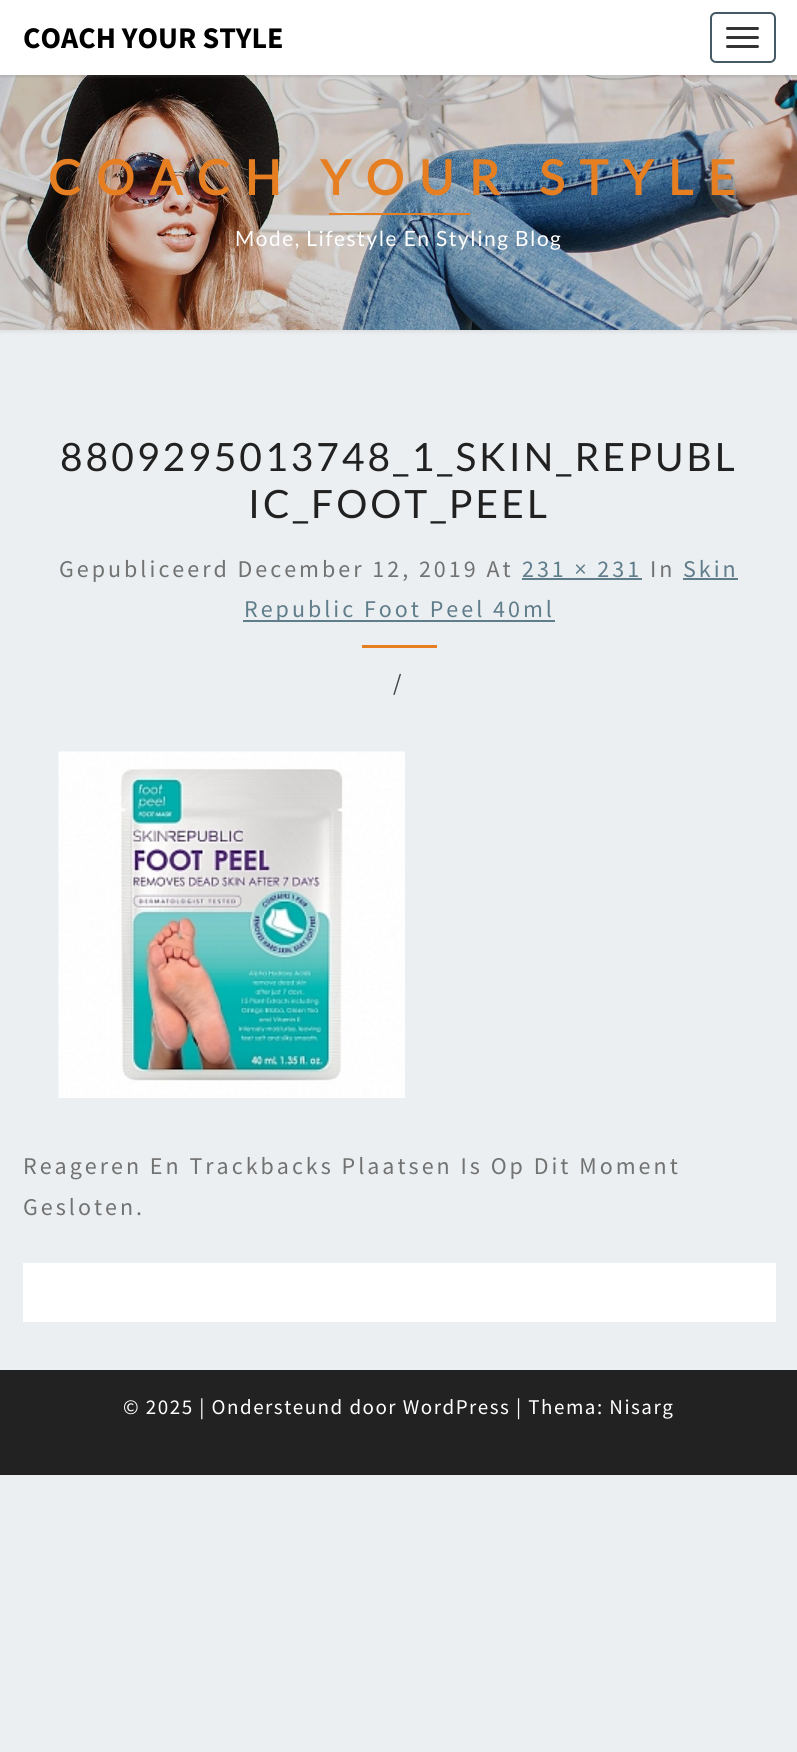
import math
import cairo



def draw_spaced(context, x, y, s, letter, word):
    context.move_to(x, y)
    for ch in s:
        context.show_text(ch)
        context.rel_move_to(letter + word * (ch == ' '), 0)


def rounded_rect(context, x, y, w, h, r):
    context.new_sub_path()
    for i, (u, v) in enumerate([(x + w - r, y + h - r), (x + r, y + h - r), (x + r, y + r), (x + w - r, y + r)]):
        context.arc(u, v, r, i * math.pi / 2, (i + 1) * math.pi / 2)
    context.close_path()


def draw_shadow(context, x, y, w, h, r, blur, alpha):
    context.push_group_with_content(cairo.Content.ALPHA)
    context.set_operator(cairo.Operator.SOURCE)
    for i in range(15, -16, -2):
        e = blur * i / 6
        if min(w, h) + 2 * e > 0:
            context.set_source_rgba(0, 0, 0, alpha * math.erfc((i - 1) / 8.5) / 2)
            rounded_rect(context, x - e, y - e, w + 2 * e, h + 2 * e, max(0, min(r + e + blur * .6, min(w, h) / 2 + e)))
            context.fill()
    context.mask(context.pop_group())


def draw_image(context, path, x, y, w, h):
    context.save()
    context.set_source_surface(cairo.ImageSurface.create_from_png(path), x, y)
    context.rectangle(x, y, w, h)
    context.fill()
    context.restore()


def draw(context):
    context.set_source_rgb(236 / 255, 239 / 255, 241 / 255)
    context.paint()
    context.set_source_rgb(182 / 255, 182 / 255, 182 / 255)
    draw_shadow(context, -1, 74, 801, 258, 0, 1.5, 0.3)
    draw_image(context, "images/1.png", 0, 75, 797, 255)
    context.set_source_rgb(100 / 255, 100 / 255, 100 / 255)
    draw_shadow(context, 0, 2, 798, 75, 0, 1, 0.2)
    context.set_source_rgb(1, 1, 1)
    context.rectangle(0, 0, 797, 75)
    context.fill()
    rounded_rect(context, 711, 13, 64, 49, 5)
    context.set_source_rgb(69 / 255, 90 / 255, 100 / 255)
    context.stroke()
    context.set_source_rgb(51 / 255, 51 / 255, 51 / 255)
    rounded_rect(context, 726, 27, 33, 3, 1.5)
    context.fill()
    rounded_rect(context, 726, 36, 33, 3, 1.5)
    context.fill()
    rounded_rect(context, 726, 45, 33, 3, 1.5)
    context.fill()
    context.set_source_rgb(230 / 255, 126 / 255, 34 / 255)
    context.rectangle(329, 213, 141, 2)
    context.fill()
    context.set_source_rgb(96 / 255, 125 / 255, 139 / 255)
    context.rectangle(522, 578, 120, 2)
    context.fill()
    context.rectangle(683, 578, 55, 2)
    context.fill()
    context.rectangle(243, 620, 312, 2)
    context.fill()
    context.set_source_rgb(230 / 255, 126 / 255, 34 / 255)
    context.rectangle(362, 645, 75, 3)
    context.fill()
    draw_image(context, "images/2.png", 58, 751, 347, 347)
    context.set_source_rgb(1, 1, 1)
    context.rectangle(23, 1263, 753, 59)
    context.fill()
    context.set_source_rgb(34 / 255, 34 / 255, 34 / 255)
    context.rectangle(0, 1370, 797, 105)
    context.fill()
    context.select_font_face("Source Sans Pro", cairo.FontSlant.NORMAL, cairo.FontWeight.BOLD)
    context.set_font_size(30)
    context.set_source_rgb(0, 0, 0)
    context.move_to(23, 48)
    context.show_text("COACH YOUR STYLE")
    context.select_font_face("Lato", cairo.FontSlant.NORMAL, cairo.FontWeight.BOLD)
    context.set_font_size(48)
    context.set_source_rgb(230 / 255, 126 / 255, 34 / 255)
    draw_spaced(context, 48, 195, "COACH YOUR STYLE", 15, 0)
    context.select_font_face("Lato")
    context.set_font_size(21)
    context.set_source_rgb(1, 1, 1)
    draw_spaced(context, 235, 246, "Mode, Lifestyle En Styling Blog", 1.5, 0)
    context.set_font_size(39)
    context.set_source_rgb(33 / 255, 33 / 255, 33 / 255)
    draw_spaced(context, 60, 471, "8809295013748_1_SKIN_REPUBL", 3, 0)
    draw_spaced(context, 248, 518, "IC_FOOT_PEEL", 3, 0)
    context.select_font_face("Source Sans Pro")
    context.set_font_size(24)
    context.set_source_rgb(114 / 255, 114 / 255, 114 / 255)
    draw_spaced(context, 59, 577, "Gepubliceerd December 12, 2019 At", 3, 0)
    context.set_source_rgb(96 / 255, 125 / 255, 139 / 255)
    draw_spaced(context, 522, 577, "231 × 231", 3, 0)
    context.set_source_rgb(114 / 255, 114 / 255, 114 / 255)
    draw_spaced(context, 650, 577, "In", 3, 0)
    context.set_source_rgb(96 / 255, 125 / 255, 139 / 255)
    draw_spaced(context, 683, 577, "Skin", 3, 0)
    draw_spaced(context, 244, 617, "Republic Foot Peel 40ml", 3, 0)
    context.set_source_rgb(66 / 255, 66 / 255, 66 / 255)
    draw_spaced(context, 393, 691, "/", 3, 0)
    context.set_source_rgb(114 / 255, 114 / 255, 114 / 255)
    draw_spaced(context, 23, 1174, "Reageren En Trackbacks Plaatsen Is Op Dit Moment", 3, 0)
    draw_spaced(context, 23, 1215, "Gesloten.", 3, 0)
    context.set_font_size(21)
    context.set_source_rgb(1, 1, 1)
    draw_spaced(context, 123, 1414, "© 2025 | Ondersteund door WordPress | Thema: Nisarg", 1.5, 0)


surface = cairo.ImageSurface(cairo.Format.RGB24, 797, 1752)
context = cairo.Context(surface)
options = cairo.FontOptions()
options.set_hint_metrics(cairo.HintMetrics.OFF)
options.set_hint_style(cairo.HintStyle.NONE)
context.set_font_options(options)
context.set_miter_limit(4)
draw(context)
surface.write_to_png("out.png")
